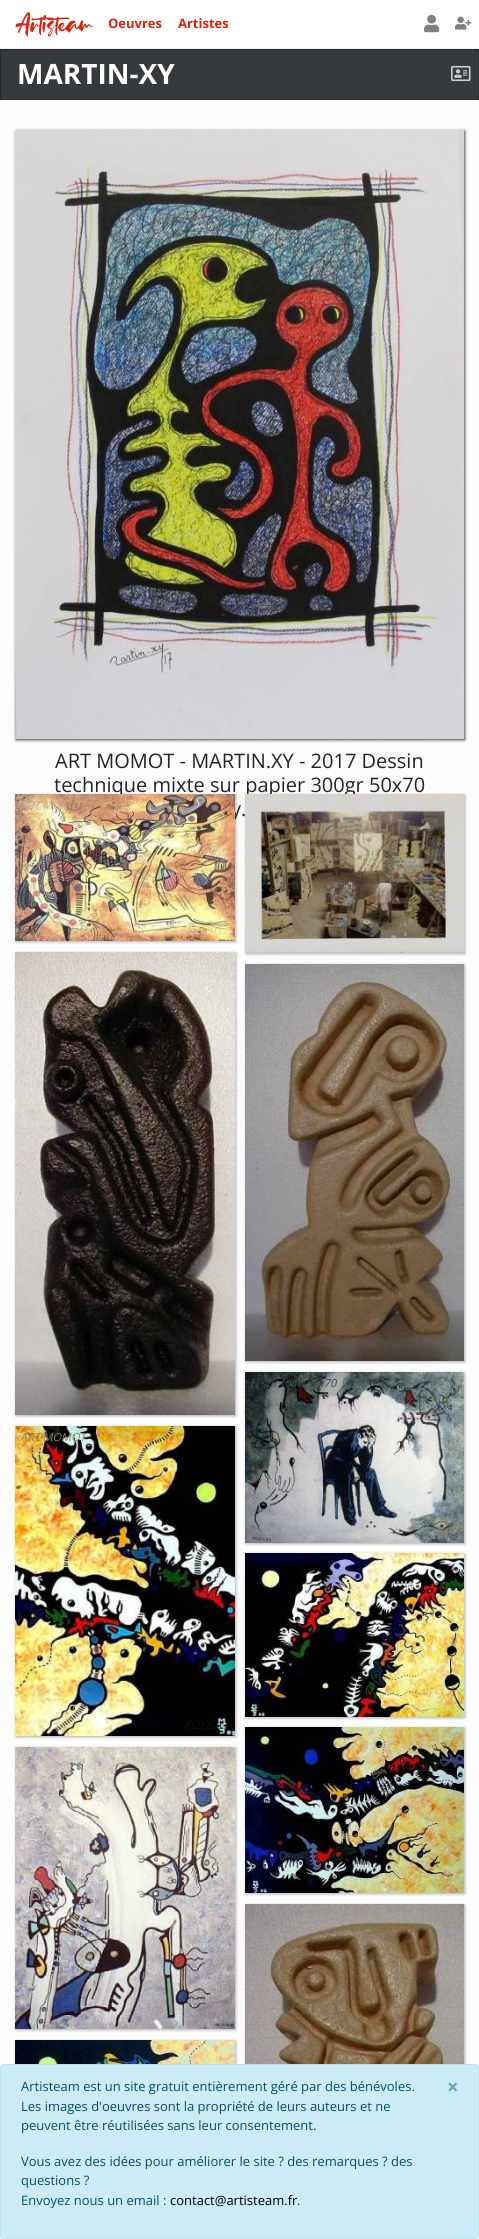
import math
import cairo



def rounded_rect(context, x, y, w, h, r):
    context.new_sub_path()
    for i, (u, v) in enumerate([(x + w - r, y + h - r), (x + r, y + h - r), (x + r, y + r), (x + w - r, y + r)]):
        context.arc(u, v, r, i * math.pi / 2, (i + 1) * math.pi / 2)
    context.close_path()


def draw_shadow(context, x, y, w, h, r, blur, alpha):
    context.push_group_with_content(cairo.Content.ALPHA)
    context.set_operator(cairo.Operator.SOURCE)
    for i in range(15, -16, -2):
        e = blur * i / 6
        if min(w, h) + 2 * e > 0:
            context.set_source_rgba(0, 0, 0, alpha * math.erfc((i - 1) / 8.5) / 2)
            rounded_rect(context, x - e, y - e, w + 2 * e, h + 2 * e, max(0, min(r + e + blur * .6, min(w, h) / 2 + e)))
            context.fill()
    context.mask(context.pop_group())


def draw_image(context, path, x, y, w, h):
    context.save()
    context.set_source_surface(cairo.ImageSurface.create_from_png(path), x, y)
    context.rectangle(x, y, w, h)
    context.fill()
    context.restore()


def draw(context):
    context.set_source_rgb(252 / 255, 252 / 255, 252 / 255)
    context.paint()
    context.set_source_rgb(1, 1, 1)
    context.rectangle(0, 0, 479, 48)
    context.fill()
    context.set_source_rgb(238 / 255, 238 / 255, 238 / 255)
    context.rectangle(0, 48, 479, 1)
    context.fill()
    draw_image(context, "images/1.png", 424, 14, 16, 19)
    draw_image(context, "images/2.png", 455, 16, 17, 14)
    context.set_source_rgb(55 / 255, 58 / 255, 60 / 255)
    context.rectangle(0.5, 49.5, 478, 50)
    context.fill_preserve()
    context.set_source_rgb(39 / 255, 41 / 255, 43 / 255)
    context.set_line_width(1)
    context.stroke()
    draw_image(context, "images/3.png", 451, 65, 20, 17)
    context.set_source_rgb(0, 0, 0)
    draw_shadow(context, 16, 131, 449, 609, 0, 1.5, 0.72)
    draw_image(context, "images/4.png", 15, 130, 449, 609)
    draw_shadow(context, 16, 795, 220, 147, 0, 1.5, 0.31)
    draw_shadow(context, 246, 795, 219, 159, 0, 1.5, 0.31)
    draw_shadow(context, 16, 953, 220, 463, 0, 1.5, 0.31)
    draw_image(context, "images/7.png", 15, 952, 220, 463)
    draw_shadow(context, 246, 965, 219, 397, 0, 1.5, 0.31)
    draw_image(context, "images/8.png", 245, 964, 219, 397)
    draw_shadow(context, 246, 1373, 219, 171, 0, 1.5, 0.31)
    draw_image(context, "images/9.png", 245, 1372, 219, 171)
    draw_shadow(context, 16, 1427, 220, 310, 0, 1.5, 0.31)
    draw_image(context, "images/10.png", 15, 1426, 220, 310)
    draw_shadow(context, 246, 1554, 219, 164, 0, 1.5, 0.31)
    draw_image(context, "images/11.png", 245, 1553, 219, 164)
    draw_shadow(context, 16, 1748, 220, 282, 0, 1.5, 0.31)
    draw_image(context, "images/12.png", 15, 1747, 220, 282)
    draw_shadow(context, 246, 1728, 219, 166, 0, 1.5, 0.31)
    draw_image(context, "images/13.png", 245, 1727, 219, 166)
    draw_shadow(context, 16, 2041, 220, 167, 0, 1.5, 0.31)
    draw_image(context, "images/14.png", 15, 2040, 220, 24)
    context.set_source_rgb(1, 1, 1)
    context.rectangle(0, 2235, 479, 4)
    context.fill()
    context.set_source_rgb(0, 0, 0)
    draw_shadow(context, 246, 1905, 219, 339, 0, 1.5, 0.31)
    draw_image(context, "images/15.png", 245, 1904, 219, 160)
    context.set_source_rgb(204 / 255, 235 / 255, 245 / 255)
    rounded_rect(context, 0.5, 2064.5, 478, 174, 3.5)
    context.fill_preserve()
    context.set_source_rgb(184 / 255, 227 / 255, 242 / 255)
    context.stroke()
    context.select_font_face("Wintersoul")
    context.set_font_size(30)
    context.set_source_rgb(217 / 255, 35 / 255, 15 / 255)
    context.move_to(15, 33)
    context.show_text("Artisteam")
    context.select_font_face("Open Sans", cairo.FontSlant.NORMAL, cairo.FontWeight.BOLD)
    context.set_font_size(13)
    context.move_to(108, 28)
    context.show_text("Oeuvres")
    context.move_to(178, 28)
    context.show_text("Artistes")
    context.set_font_size(28)
    context.set_source_rgb(1, 1, 1)
    context.move_to(17, 84)
    context.show_text("MARTIN-XY")
    context.select_font_face("Open Sans")
    context.set_font_size(20)
    context.set_source_rgb(33 / 255, 37 / 255, 41 / 255)
    context.move_to(55, 768)
    context.show_text("ART MOMOT - MARTIN.XY - 2017 Dessin")
    context.move_to(54, 792)
    context.show_text("technique mixte sur papier 300gr 50x70")
    context.move_to(231, 816)
    context.show_text("y.")
    draw_image(context, "images/5.png", 15, 794, 220, 147)
    context.select_font_face("Open Sans", cairo.FontSlant.ITALIC)
    context.set_font_size(11)
    context.set_source_rgb(206 / 255, 171 / 255, 138 / 255)
    context.move_to(20, 809)
    context.show_text("ART MOMOT")
    context.select_font_face("Open Sans")
    context.set_source_rgb(229 / 255, 205 / 255, 142 / 255)
    context.move_to(171, 934)
    context.show_text("23/02/2012")
    draw_image(context, "images/6.png", 245, 794, 219, 159)
    context.select_font_face("Open Sans", cairo.FontSlant.ITALIC)
    context.set_source_rgb(65 / 255, 72 / 255, 72 / 255)
    context.move_to(250, 1387)
    context.show_text("H sur toile 50x70")
    context.set_source_rgb(139 / 255, 131 / 255, 92 / 255)
    context.move_to(20, 1441)
    context.show_text("ART MOMOT")
    context.select_font_face("Open Sans")
    context.set_source_rgb(15 / 255, 18 / 255, 19 / 255)
    context.move_to(184, 1729)
    context.show_text("/02/201")
    context.set_font_size(13)
    context.set_source_rgb(1 / 255, 80 / 255, 108 / 255)
    context.move_to(21, 2091)
    context.show_text("Artisteam est un site gratuit entièrement géré par des bénévoles.")
    context.move_to(21, 2111)
    context.show_text("Les images d'oeuvres sont la propriété de leurs auteurs et ne")
    context.move_to(21, 2130)
    context.show_text("peuvent être réutilisées sans leur consentement.")
    context.select_font_face("Open Sans", cairo.FontSlant.NORMAL, cairo.FontWeight.BOLD)
    context.set_font_size(20)
    context.set_source_rgb(103 / 255, 158 / 255, 177 / 255)
    context.move_to(447, 2094)
    context.show_text("×")
    context.select_font_face("Open Sans")
    context.set_font_size(13)
    context.set_source_rgb(1 / 255, 80 / 255, 108 / 255)
    context.move_to(21, 2166)
    context.show_text("Vous avez des idées pour améliorer le site ? des remarques ? des")
    context.move_to(21, 2185)
    context.show_text("questions ?")
    context.move_to(21, 2205)
    context.show_text("Envoyez nous un email :")
    context.set_source_rgb(0, 0, 0)
    context.move_to(170, 2205)
    context.show_text("contact@artisteam.fr")
    context.set_source_rgb(1 / 255, 80 / 255, 108 / 255)
    context.move_to(297, 2205)
    context.show_text(".")


surface = cairo.ImageSurface(cairo.Format.RGB24, 479, 2239)
context = cairo.Context(surface)
options = cairo.FontOptions()
options.set_hint_metrics(cairo.HintMetrics.OFF)
options.set_hint_style(cairo.HintStyle.NONE)
context.set_font_options(options)
context.set_miter_limit(4)
draw(context)
surface.write_to_png("out.png")
